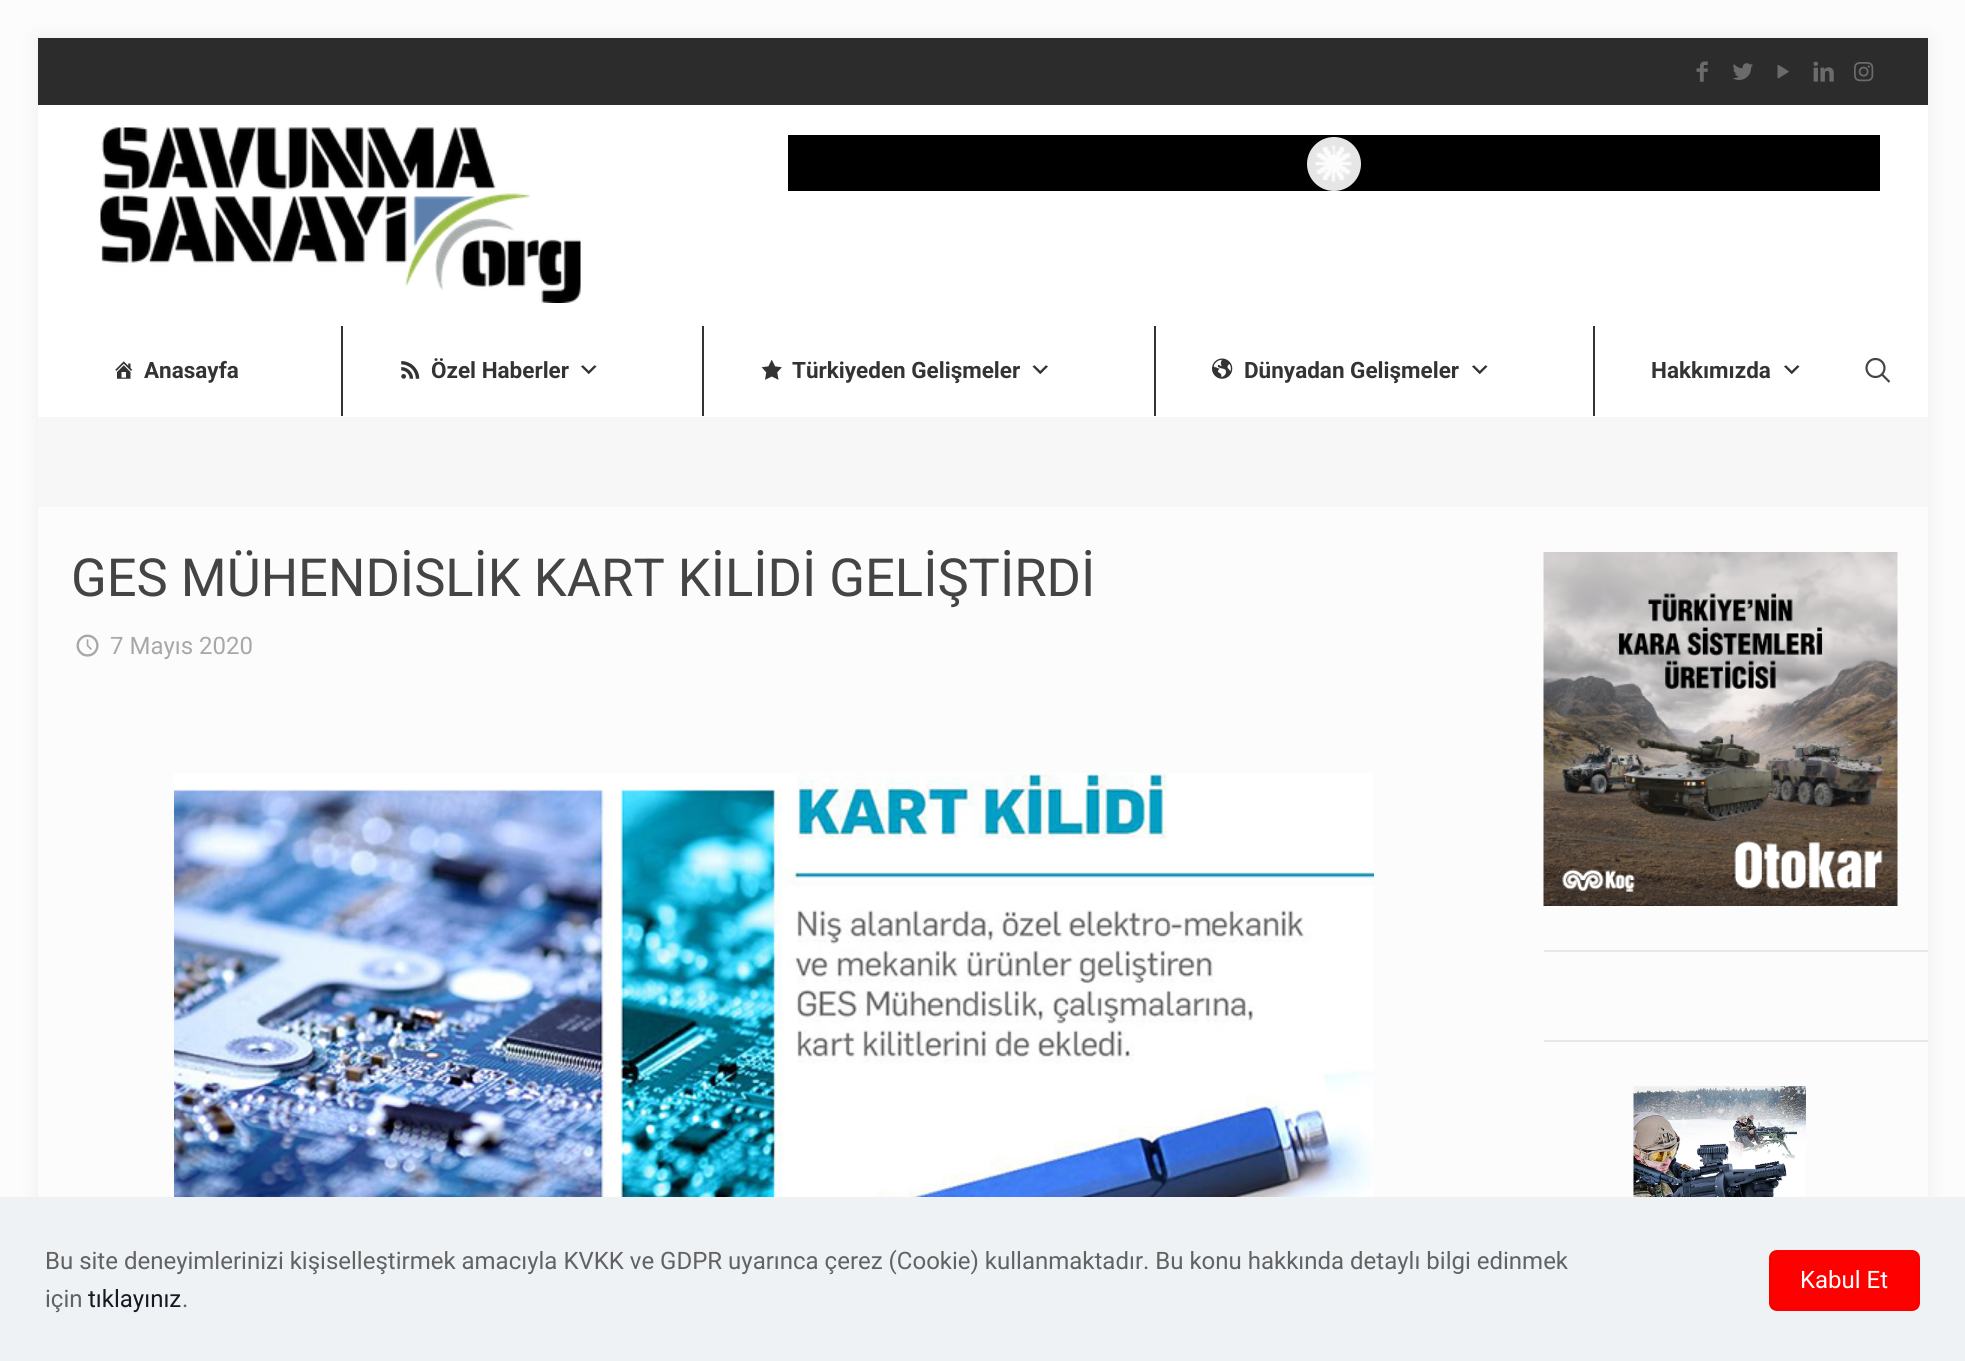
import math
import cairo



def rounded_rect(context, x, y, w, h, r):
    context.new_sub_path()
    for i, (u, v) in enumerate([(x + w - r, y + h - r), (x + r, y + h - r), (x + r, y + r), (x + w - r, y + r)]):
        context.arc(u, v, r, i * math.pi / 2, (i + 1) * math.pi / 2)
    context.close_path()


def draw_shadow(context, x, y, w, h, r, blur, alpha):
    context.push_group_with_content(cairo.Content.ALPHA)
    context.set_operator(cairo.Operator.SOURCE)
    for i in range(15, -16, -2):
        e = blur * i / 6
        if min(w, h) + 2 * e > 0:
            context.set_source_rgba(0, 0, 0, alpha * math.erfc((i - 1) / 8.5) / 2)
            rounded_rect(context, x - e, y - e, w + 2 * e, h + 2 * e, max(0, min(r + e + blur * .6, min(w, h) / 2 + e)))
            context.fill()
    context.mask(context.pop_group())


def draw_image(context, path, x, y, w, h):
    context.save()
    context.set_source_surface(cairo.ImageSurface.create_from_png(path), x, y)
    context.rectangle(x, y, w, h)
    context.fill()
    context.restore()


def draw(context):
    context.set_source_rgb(252 / 255, 252 / 255, 252 / 255)
    context.paint()
    context.set_source_rgb(0, 0, 0)
    draw_shadow(context, 38, 38, 1890, 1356, 0, 11, 0.06)
    context.set_source_rgb(252 / 255, 252 / 255, 252 / 255)
    context.rectangle(38, 507, 1890, 690)
    context.fill()
    context.set_source_rgb(44 / 255, 44 / 255, 44 / 255)
    context.rectangle(38, 38, 1890, 67)
    context.fill()
    draw_image(context, "images/1.png", 1696, 61, 12, 21)
    draw_image(context, "images/2.png", 1733, 63, 20, 17)
    draw_image(context, "images/3.png", 1777, 65, 12, 14)
    draw_image(context, "images/4.png", 1813, 61, 21, 21)
    draw_image(context, "images/5.png", 1854, 62, 20, 20)
    context.set_source_rgb(1, 1, 1)
    context.rectangle(38, 105, 1890, 312)
    context.fill()
    draw_image(context, "images/6.png", 100, 127, 481, 176)
    context.set_source_rgb(0, 0, 0)
    context.rectangle(788, 135, 1092, 56)
    context.fill()
    context.set_source_rgb(230 / 255, 230 / 255, 230 / 255)
    context.arc(1334, 164, 27, 0, 2 * math.pi)
    context.fill()
    draw_image(context, "images/7.png", 1315, 145, 37, 37)
    draw_image(context, "images/8.png", 115, 361, 18, 18)
    context.set_source_rgb(51 / 255, 51 / 255, 51 / 255)
    context.rectangle(341, 326, 2, 90)
    context.fill()
    draw_image(context, "images/9.png", 401, 361, 19, 18)
    draw_image(context, "images/10.png", 581, 365, 16, 10)
    context.rectangle(702, 326, 2, 90)
    context.fill()
    draw_image(context, "images/11.png", 761, 359, 21, 21)
    draw_image(context, "images/12.png", 1032, 365, 16, 10)
    context.rectangle(1154, 326, 2, 90)
    context.fill()
    draw_image(context, "images/13.png", 1212, 358, 21, 21)
    draw_image(context, "images/10.png", 1472, 365, 16, 10)
    context.rectangle(1593, 326, 2, 90)
    context.fill()
    draw_image(context, "images/10.png", 1784, 365, 16, 10)
    context.arc(1875.5, 368, 9, 0, 2 * math.pi)
    context.set_source_rgb(68 / 255, 68 / 255, 68 / 255)
    context.set_line_width(2.2)
    context.stroke()
    context.new_path()
    context.move_to(1882, 374.5)
    context.line_to(1889.5, 382)
    context.stroke()
    context.set_source_rgb(247 / 255, 247 / 255, 247 / 255)
    context.rectangle(38, 417, 1890, 90)
    context.fill()
    draw_image(context, "images/14.png", 76, 634, 23, 23)
    draw_image(context, "images/15.png", 174, 773, 1200, 424)
    draw_image(context, "images/16.png", 1543, 552, 355, 354)
    context.set_source_rgb(232 / 255, 232 / 255, 232 / 255)
    context.rectangle(1544, 950, 384, 2)
    context.fill()
    context.rectangle(1544, 1040, 384, 2)
    context.fill()
    draw_image(context, "images/17.png", 1633, 1086, 173, 111)
    context.set_source_rgb(238 / 255, 242 / 255, 245 / 255)
    context.rectangle(0, 1197, 1965, 164)
    context.fill()
    context.set_source_rgb(1, 0, 0)
    rounded_rect(context, 1769, 1250, 151, 61, 8)
    context.fill()
    rounded_rect(context, 1771, 1252, 147, 57, 5)
    context.set_source_rgb(247 / 255, 0, 0)
    context.set_line_width(2)
    context.stroke()
    context.select_font_face("Roboto", cairo.FontSlant.NORMAL, cairo.FontWeight.BOLD)
    context.set_font_size(22.5)
    context.set_source_rgb(51 / 255, 51 / 255, 51 / 255)
    context.move_to(144, 378)
    context.show_text("Anasayfa")
    context.move_to(431, 378)
    context.show_text("Özel Haberler")
    context.move_to(792, 378)
    context.show_text("Türkiyeden Gelişmeler")
    context.move_to(1244, 378)
    context.show_text("Dünyadan Gelişmeler")
    context.move_to(1651, 378)
    context.show_text("Hakkımızda")
    context.select_font_face("Roboto")
    context.set_font_size(52.5)
    context.set_source_rgb(68 / 255, 68 / 255, 68 / 255)
    context.move_to(71, 596)
    context.show_text("GES MÜHENDİSLİK KART KİLİDİ GELİŞTİRDİ")
    context.set_font_size(24)
    context.set_source_rgb(168 / 255, 168 / 255, 168 / 255)
    context.move_to(110, 654)
    context.show_text("7 Mayıs 2020")
    context.set_source_rgb(98 / 255, 98 / 255, 98 / 255)
    context.move_to(45, 1269)
    context.show_text("Bu site deneyimlerinizi kişiselleştirmek amacıyla KVKK ve GDPR uyarınca çerez (Cookie) kullanmaktadır. Bu konu hakkında detaylı bilgi edinmek")
    context.move_to(45, 1307)
    context.show_text("için")
    context.set_source_rgb(22 / 255, 25 / 255, 34 / 255)
    context.move_to(88, 1307)
    context.show_text("tıklayınız")
    context.set_source_rgb(98 / 255, 98 / 255, 98 / 255)
    context.move_to(182, 1307)
    context.show_text(".")
    context.set_source_rgb(1, 1, 1)
    context.move_to(1800, 1288)
    context.show_text("Kabul Et")


surface = cairo.ImageSurface(cairo.Format.RGB24, 1965, 1361)
context = cairo.Context(surface)
options = cairo.FontOptions()
options.set_hint_metrics(cairo.HintMetrics.OFF)
options.set_hint_style(cairo.HintStyle.NONE)
context.set_font_options(options)
context.set_miter_limit(4)
draw(context)
surface.write_to_png("out.png")
